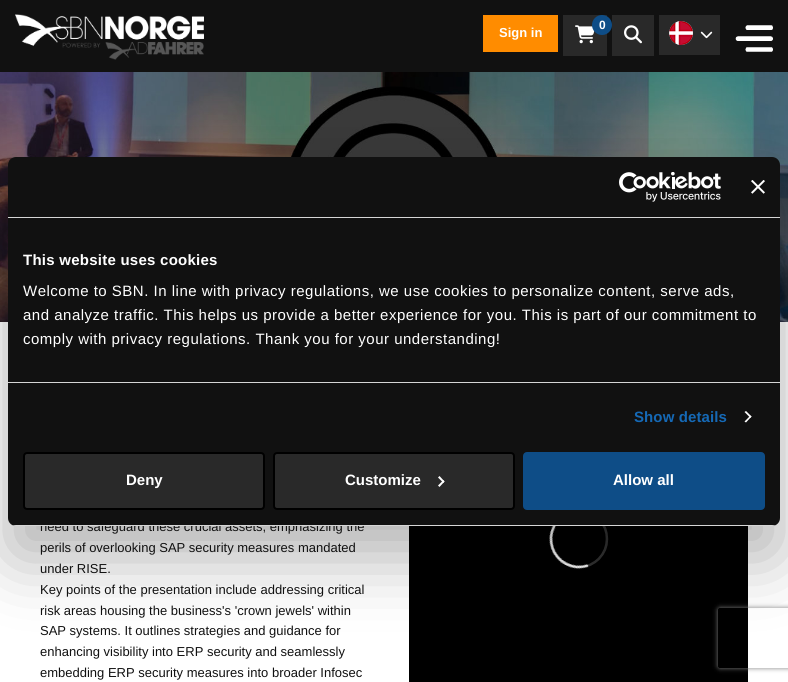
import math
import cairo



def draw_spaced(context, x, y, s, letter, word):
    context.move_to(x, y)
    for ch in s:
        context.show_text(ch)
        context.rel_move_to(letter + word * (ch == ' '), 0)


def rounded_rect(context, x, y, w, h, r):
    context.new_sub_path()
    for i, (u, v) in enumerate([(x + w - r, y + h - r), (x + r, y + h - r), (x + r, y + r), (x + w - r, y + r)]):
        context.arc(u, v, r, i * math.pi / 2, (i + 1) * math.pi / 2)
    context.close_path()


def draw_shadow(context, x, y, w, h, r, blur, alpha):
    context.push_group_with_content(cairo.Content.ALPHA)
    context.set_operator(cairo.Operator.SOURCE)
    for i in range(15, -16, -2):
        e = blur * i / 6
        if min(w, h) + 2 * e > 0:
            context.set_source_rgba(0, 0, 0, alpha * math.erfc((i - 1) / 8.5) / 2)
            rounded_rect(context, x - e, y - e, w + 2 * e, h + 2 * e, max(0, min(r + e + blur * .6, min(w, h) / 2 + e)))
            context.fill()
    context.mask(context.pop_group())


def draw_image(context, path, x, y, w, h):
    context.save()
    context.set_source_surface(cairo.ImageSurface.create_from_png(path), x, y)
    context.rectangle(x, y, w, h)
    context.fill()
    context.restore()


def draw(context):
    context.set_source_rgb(1, 1, 1)
    context.paint()
    context.set_source_rgb(17 / 255, 17 / 255, 17 / 255)
    context.rectangle(0, 0, 788, 72)
    context.fill()
    draw_image(context, "images/1.png", 15, 14, 189, 46)
    context.set_source_rgb(1, 140 / 255, 0)
    context.rectangle(483, 15, 75, 37)
    context.fill()
    context.set_source_rgb(41 / 255, 41 / 255, 41 / 255)
    context.rectangle(563, 15, 44, 41)
    context.fill()
    draw_image(context, "images/2.png", 575, 25, 20, 19)
    context.set_source_rgb(14 / 255, 77 / 255, 135 / 255)
    context.arc(602, 25, 10, 0, 2 * math.pi)
    context.fill()
    context.set_source_rgb(41 / 255, 41 / 255, 41 / 255)
    context.rectangle(612, 15, 42, 41)
    context.fill()
    draw_image(context, "images/3.png", 624, 25, 18, 19)
    context.rectangle(659, 15, 61, 40)
    context.fill()
    draw_image(context, "images/4.png", 669, 21, 24, 24)
    draw_image(context, "images/5.png", 700, 31, 13, 8)
    draw_image(context, "images/6.png", 735, 25, 38, 27)
    draw_image(context, "images/7.png", 0, 72, 788, 250)
    draw_image(context, "images/8.png", 409, 526, 339, 156)
    context.set_source_rgb(0, 0, 0)
    draw_shadow(context, 8, 189, 772, 369, 8, 34, 0.3)
    context.set_source_rgb(17 / 255, 17 / 255, 17 / 255)
    rounded_rect(context, 8, 157, 772, 369, 8)
    context.fill()
    context.set_source_rgb(214 / 255, 214 / 255, 214 / 255)
    context.rectangle(8, 217, 772, 1)
    context.fill()
    draw_image(context, "images/9.png", 619, 172, 102, 30)
    draw_image(context, "images/10.png", 751, 180, 14, 14)
    context.rectangle(8, 382, 772, 1)
    context.fill()
    context.set_source_rgb(1, 1, 1)
    context.new_path()
    context.move_to(746, 411)
    context.line_to(751.5, 416.5)
    context.line_to(750.5, 418)
    context.line_to(744.5, 412)
    context.close_path()
    context.fill()
    context.new_path()
    context.move_to(750.5, 415.5)
    context.line_to(751.5, 416.5)
    context.line_to(746, 422.5)
    context.line_to(744.5, 421.5)
    context.close_path()
    context.fill()
    context.set_source_rgb(41 / 255, 41 / 255, 41 / 255)
    rounded_rect(context, 24, 453, 240, 56, 3)
    context.fill_preserve()
    context.set_source_rgb(0, 0, 0)
    context.stroke()
    context.set_source_rgb(41 / 255, 41 / 255, 41 / 255)
    rounded_rect(context, 274, 453, 240, 56, 3)
    context.fill_preserve()
    context.set_source_rgb(0, 0, 0)
    context.stroke()
    context.set_source_rgb(1, 1, 1)
    context.new_path()
    context.move_to(439.5, 476)
    context.line_to(444.5, 481.5)
    context.line_to(443.5, 483)
    context.line_to(438, 477.5)
    context.close_path()
    context.fill()
    context.new_path()
    context.move_to(443.5, 480)
    context.line_to(444.5, 481.5)
    context.line_to(439.5, 487)
    context.line_to(438, 485.5)
    context.close_path()
    context.fill()
    context.set_source_rgb(14 / 255, 77 / 255, 135 / 255)
    rounded_rect(context, 524, 453, 240, 56, 3)
    context.fill_preserve()
    context.stroke()
    context.save()
    context.set_fill_rule(cairo.FillRule.EVEN_ODD)
    context.new_path()
    context.move_to(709, 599)
    context.line_to(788, 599)
    context.line_to(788, 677)
    context.line_to(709, 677)
    context.close_path()
    context.move_to(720, 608)
    context.line_to(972, 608)
    context.curve_to(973, 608, 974, 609, 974, 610)
    context.line_to(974, 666)
    context.curve_to(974, 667, 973, 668, 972, 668)
    context.line_to(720, 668)
    context.curve_to(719, 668, 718, 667, 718, 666)
    context.line_to(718, 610)
    context.curve_to(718, 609, 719, 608, 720, 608)
    context.close_path()
    context.clip()
    context.set_source_rgb(128 / 255, 128 / 255, 128 / 255)
    draw_shadow(context, 718, 608, 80, 60, 2, 2.5, 1)
    context.restore()
    context.select_font_face("Liberation Sans", cairo.FontSlant.NORMAL, cairo.FontWeight.BOLD)
    context.set_font_size(13)
    context.set_source_rgb(1, 1, 1)
    context.move_to(499, 37)
    context.show_text("Sign in")
    context.set_font_size(12)
    context.move_to(599, 29)
    context.show_text("0")
    context.select_font_face("Liberation Sans")
    context.set_font_size(13)
    context.set_source_rgb(17 / 255, 17 / 255, 17 / 255)
    context.move_to(40, 531)
    context.show_text("need to safeguard these crucial assets, emphasizing the")
    context.move_to(40, 552)
    context.show_text("perils of overlooking SAP security measures mandated")
    context.move_to(40, 573)
    context.show_text("under RISE.")
    context.move_to(40, 594)
    context.show_text("Key points of the presentation include addressing critical")
    context.move_to(40, 615)
    context.show_text("risk areas housing the business's 'crown jewels' within")
    context.move_to(40, 635)
    context.show_text("SAP systems. It outlines strategies and guidance for")
    context.move_to(40, 656)
    context.show_text("enhancing visibility into ERP security and seamlessly")
    context.move_to(40, 677)
    context.show_text("embedding ERP security measures into broader Infosec")
    context.select_font_face("Liberation Sans", cairo.FontSlant.NORMAL, cairo.FontWeight.BOLD)
    context.set_font_size(15)
    context.set_source_rgb(1, 1, 1)
    draw_spaced(context, 23, 265, "This website uses cookies", 0.25, 0)
    context.select_font_face("Liberation Sans")
    draw_spaced(context, 23, 296, "Welcome to SBN. In line with privacy regulations, we use cookies to personalize content, serve ads,", 0.5, 0)
    draw_spaced(context, 23, 320, "and analyze traffic. This helps us provide a better experience for you. This is part of our commitment to", 0.5, 0)
    draw_spaced(context, 23, 344, "comply with privacy regulations. Thank you for your understanding!", 0.5, 0)
    context.select_font_face("Liberation Sans", cairo.FontSlant.NORMAL, cairo.FontWeight.BOLD)
    context.set_source_rgb(21 / 255, 105 / 255, 182 / 255)
    draw_spaced(context, 634, 422, "Show details", 0.1, 0)
    context.save()
    rounded_rect(context, 8, 157, 772, 369, 8)
    context.clip()
    context.set_source_rgb(214 / 255, 214 / 255, 214 / 255)
    context.rectangle(8, 525, 772, 1)
    context.fill()
    context.restore()
    context.set_source_rgb(1, 1, 1)
    context.move_to(126, 485)
    context.show_text("Deny")
    context.move_to(345, 485)
    context.show_text("Customize")
    context.move_to(613, 485)
    context.show_text("Allow all")


surface = cairo.ImageSurface(cairo.Format.RGB24, 788, 682)
context = cairo.Context(surface)
options = cairo.FontOptions()
options.set_hint_metrics(cairo.HintMetrics.OFF)
options.set_hint_style(cairo.HintStyle.NONE)
context.set_font_options(options)
context.set_miter_limit(4)
draw(context)
surface.write_to_png("out.png")
